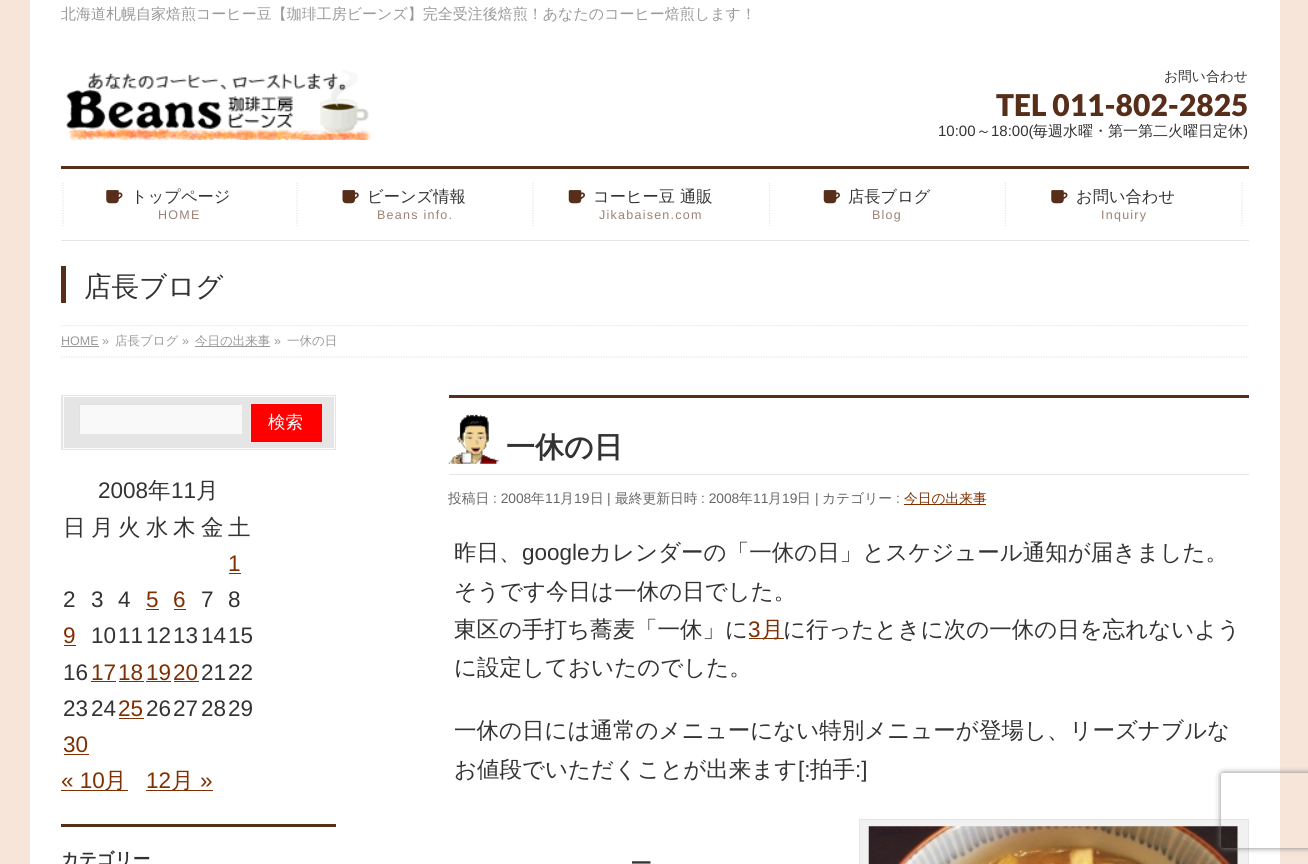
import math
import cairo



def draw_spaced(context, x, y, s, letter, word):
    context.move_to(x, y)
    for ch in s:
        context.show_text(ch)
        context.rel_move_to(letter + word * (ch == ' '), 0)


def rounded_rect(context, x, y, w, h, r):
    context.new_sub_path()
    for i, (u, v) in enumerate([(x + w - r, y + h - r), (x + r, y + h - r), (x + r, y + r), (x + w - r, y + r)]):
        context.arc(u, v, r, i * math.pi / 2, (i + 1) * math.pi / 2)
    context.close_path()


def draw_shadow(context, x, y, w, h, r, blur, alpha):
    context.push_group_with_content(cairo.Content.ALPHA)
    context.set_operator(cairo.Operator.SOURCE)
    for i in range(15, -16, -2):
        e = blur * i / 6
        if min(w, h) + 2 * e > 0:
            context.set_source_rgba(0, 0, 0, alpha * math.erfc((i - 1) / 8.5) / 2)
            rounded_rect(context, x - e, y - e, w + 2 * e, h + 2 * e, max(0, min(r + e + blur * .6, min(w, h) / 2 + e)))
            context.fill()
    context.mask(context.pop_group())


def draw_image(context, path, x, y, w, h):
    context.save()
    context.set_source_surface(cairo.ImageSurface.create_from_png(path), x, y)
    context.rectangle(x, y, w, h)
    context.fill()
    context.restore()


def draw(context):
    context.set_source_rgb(247 / 255, 229 / 255, 217 / 255)
    context.paint()
    context.set_source_rgb(1, 1, 1)
    context.rectangle(30, 0, 1250, 241)
    context.fill()
    draw_image(context, "images/1.png", 66, 70, 307, 70)
    context.set_source_rgb(86 / 255, 46 / 255, 26 / 255)
    context.rectangle(61, 166, 1188, 3)
    context.fill()
    context.set_source_rgb(229 / 255, 229 / 255, 229 / 255)
    context.rectangle(61, 240, 1188, 1)
    context.fill()
    context.new_path()
    context.move_to(63, 182.5)
    context.line_to(63, 226)
    context.set_line_width(1.2)
    context.set_dash([1.25, 1.25])
    context.stroke()
    draw_image(context, "images/2.png", 106, 190, 17, 14)
    context.new_path()
    context.move_to(297, 182.5)
    context.line_to(297, 226)
    context.stroke()
    draw_image(context, "images/3.png", 342, 190, 17, 14)
    context.new_path()
    context.move_to(533, 182.5)
    context.line_to(533, 226)
    context.stroke()
    draw_image(context, "images/4.png", 568, 190, 17, 14)
    context.new_path()
    context.move_to(769.5, 182.5)
    context.line_to(769.5, 226)
    context.stroke()
    draw_image(context, "images/4.png", 823, 190, 17, 14)
    context.new_path()
    context.move_to(1005.5, 182.5)
    context.line_to(1005.5, 226)
    context.stroke()
    draw_image(context, "images/2.png", 1051, 190, 17, 14)
    context.new_path()
    context.move_to(1242, 182.5)
    context.line_to(1242, 226)
    context.stroke()
    context.set_source_rgb(1, 1, 1)
    context.rectangle(30, 241, 1250, 84)
    context.fill()
    context.set_source_rgb(86 / 255, 46 / 255, 26 / 255)
    context.rectangle(61, 266, 5, 37)
    context.fill()
    context.set_source_rgb(1, 1, 1)
    context.rectangle(30, 325, 1250, 539)
    context.fill()
    context.save()
    context.rectangle(30, 325, 1250, 33)
    context.clip()
    context.new_path()
    context.move_to(61, 325.5)
    context.line_to(1249, 325.5)
    context.set_source_rgb(229 / 255, 229 / 255, 229 / 255)
    context.stroke()
    context.restore()
    context.new_path()
    context.move_to(61, 357)
    context.line_to(1249, 357)
    context.set_source_rgb(229 / 255, 229 / 255, 229 / 255)
    context.stroke()
    context.set_source_rgb(153 / 255, 153 / 255, 153 / 255)
    context.rectangle(61, 346, 38, 1)
    context.fill()
    context.rectangle(195, 346, 75, 1)
    context.fill()
    context.set_source_rgb(229 / 255, 229 / 255, 229 / 255)
    context.rectangle(61, 395, 275, 55)
    context.fill()
    context.rectangle(63.5, 396.5, 271, 52)
    context.set_source_rgb(252 / 255, 252 / 255, 252 / 255)
    context.set_line_width(1)
    context.set_dash([])
    context.stroke()
    context.set_source_rgb(249 / 255, 249 / 255, 249 / 255)
    context.rectangle(80, 404, 162, 30)
    context.fill()
    context.save()
    context.rectangle(79, 404, 162, 30)
    context.clip()
    context.set_source_rgb(224 / 255, 224 / 255, 224 / 255)
    context.set_fill_rule(cairo.FillRule.EVEN_ODD)
    context.new_path()
    context.move_to(-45, 280)
    context.line_to(365, 280)
    context.line_to(365, 558)
    context.line_to(-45, 558)
    context.close_path()
    context.move_to(80, 405)
    context.line_to(242, 405)
    context.line_to(242, 435)
    context.line_to(80, 435)
    context.close_path()
    context.fill()
    context.restore()
    context.set_source_rgb(1, 0, 0)
    context.rectangle(250.5, 403.5, 72, 39)
    context.fill_preserve()
    context.set_source_rgb(1, 230 / 255, 230 / 255)
    context.stroke()
    context.set_source_rgb(127 / 255, 48 / 255, 2 / 255)
    context.rectangle(229, 573, 12, 1)
    context.fill()
    context.rectangle(146, 609, 13, 1)
    context.fill()
    context.rectangle(174, 609, 12, 1)
    context.fill()
    context.rectangle(64, 645, 12, 1)
    context.fill()
    context.rectangle(91, 681, 25, 1)
    context.fill()
    context.rectangle(119, 681, 25, 1)
    context.fill()
    context.rectangle(146, 681, 25, 1)
    context.fill()
    context.rectangle(174, 681, 25, 1)
    context.fill()
    context.rectangle(119, 718, 25, 1)
    context.fill()
    context.rectangle(64, 754, 25, 1)
    context.fill()
    context.rectangle(61, 790, 67, 1)
    context.fill()
    context.rectangle(146, 790, 67, 1)
    context.fill()
    context.set_source_rgb(86 / 255, 46 / 255, 26 / 255)
    context.rectangle(61, 824, 275, 3)
    context.fill()
    context.rectangle(449, 395, 800, 3)
    context.fill()
    context.set_source_rgb(229 / 255, 229 / 255, 229 / 255)
    context.rectangle(449, 474, 800, 1)
    context.fill()
    draw_image(context, "images/5.png", 448, 414, 51, 50)
    context.set_source_rgb(127 / 255, 48 / 255, 2 / 255)
    context.rectangle(904, 504, 82, 1)
    context.fill()
    context.rectangle(749, 638, 35, 1)
    context.fill()
    context.set_source_rgb(241 / 255, 241 / 255, 241 / 255)
    context.rectangle(859.5, 819.5, 389, 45)
    context.fill_preserve()
    context.set_source_rgb(229 / 255, 229 / 255, 229 / 255)
    context.stroke()
    draw_image(context, "images/6.png", 868, 826, 370, 38)
    context.save()
    context.set_fill_rule(cairo.FillRule.EVEN_ODD)
    context.new_path()
    context.move_to(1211, 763)
    context.line_to(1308, 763)
    context.line_to(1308, 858)
    context.line_to(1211, 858)
    context.close_path()
    context.move_to(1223.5, 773)
    context.line_to(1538.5, 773)
    context.curve_to(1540, 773, 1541, 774, 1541, 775.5)
    context.line_to(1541, 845.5)
    context.curve_to(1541, 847, 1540, 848, 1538.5, 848)
    context.line_to(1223.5, 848)
    context.curve_to(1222, 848, 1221, 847, 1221, 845.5)
    context.line_to(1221, 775.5)
    context.curve_to(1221, 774, 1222, 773, 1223.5, 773)
    context.close_path()
    context.clip()
    context.set_source_rgb(128 / 255, 128 / 255, 128 / 255)
    draw_shadow(context, 1221, 773, 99, 75, 2.5, 3, 1)
    context.restore()
    context.select_font_face("WenQuanYi Zen Hei Medium")
    context.set_font_size(15)
    context.set_source_rgb(153 / 255, 153 / 255, 153 / 255)
    context.move_to(61, 19)
    context.show_text("北海道札幌自家焙煎コーヒー豆【珈琲工房ビーンズ】完全受注後焙煎！あなたのコーヒー焙煎します！")
    context.set_font_size(13.75)
    context.set_source_rgb(51 / 255, 51 / 255, 51 / 255)
    context.move_to(1164, 81)
    context.show_text("お問い合わせ")
    context.select_font_face("Lato Black")
    context.set_font_size(30)
    context.set_source_rgb(86 / 255, 46 / 255, 26 / 255)
    context.move_to(996, 116)
    context.show_text("TEL 011-802-2825")
    context.select_font_face("Liberation Sans")
    context.set_font_size(15)
    context.set_source_rgb(51 / 255, 51 / 255, 51 / 255)
    context.move_to(938, 136)
    context.show_text("10:00")
    context.select_font_face("WenQuanYi Zen Hei Medium")
    context.move_to(976, 136)
    context.show_text("～")
    context.select_font_face("Liberation Sans")
    context.move_to(991, 136)
    context.show_text("18:00(")
    context.select_font_face("WenQuanYi Zen Hei Medium")
    context.move_to(1033, 136)
    context.show_text("毎週水曜・第一第二火曜日定休")
    context.select_font_face("Liberation Sans")
    context.move_to(1243, 136)
    context.show_text(")")
    context.select_font_face("WenQuanYi Zen Hei Medium")
    context.set_font_size(16.25)
    context.move_to(131, 202)
    context.show_text("トップページ")
    context.select_font_face("Liberation Sans")
    context.set_font_size(12.5)
    context.set_source_rgb(154 / 255, 130 / 255, 118 / 255)
    draw_spaced(context, 158, 219, "HOME", 1.25, 0)
    context.select_font_face("WenQuanYi Zen Hei Medium")
    context.set_font_size(16.25)
    context.set_source_rgb(51 / 255, 51 / 255, 51 / 255)
    context.move_to(367, 202)
    context.show_text("ビーンズ情報")
    context.select_font_face("Liberation Sans")
    context.set_font_size(12.5)
    context.set_source_rgb(154 / 255, 130 / 255, 118 / 255)
    draw_spaced(context, 377, 219, "Beans info.", 1.25, 0)
    context.select_font_face("WenQuanYi Zen Hei Medium")
    context.set_font_size(16.25)
    context.set_source_rgb(51 / 255, 51 / 255, 51 / 255)
    context.move_to(593, 202)
    context.show_text("コーヒー豆 通販")
    context.select_font_face("Liberation Sans")
    context.set_font_size(12.5)
    context.set_source_rgb(154 / 255, 130 / 255, 118 / 255)
    draw_spaced(context, 599, 219, "Jikabaisen.com", 1.25, 0)
    context.select_font_face("WenQuanYi Zen Hei Medium")
    context.set_font_size(16.25)
    context.set_source_rgb(51 / 255, 51 / 255, 51 / 255)
    context.move_to(848, 202)
    context.show_text("店長ブログ")
    context.select_font_face("Liberation Sans")
    context.set_font_size(12.5)
    context.set_source_rgb(154 / 255, 130 / 255, 118 / 255)
    draw_spaced(context, 872, 219, "Blog", 1.25, 0)
    context.select_font_face("WenQuanYi Zen Hei Medium")
    context.set_font_size(16.25)
    context.set_source_rgb(51 / 255, 51 / 255, 51 / 255)
    context.move_to(1076, 202)
    context.show_text("お問い合わせ")
    context.select_font_face("Liberation Sans")
    context.set_font_size(12.5)
    context.set_source_rgb(154 / 255, 130 / 255, 118 / 255)
    draw_spaced(context, 1101, 219, "Inquiry", 1.25, 0)
    context.select_font_face("WenQuanYi Zen Hei Medium")
    context.set_font_size(27.5)
    context.set_source_rgb(51 / 255, 51 / 255, 51 / 255)
    context.move_to(84, 296)
    context.show_text("店長ブログ")
    context.select_font_face("Liberation Sans")
    context.set_font_size(12.5)
    context.set_source_rgb(153 / 255, 153 / 255, 153 / 255)
    context.move_to(61, 345)
    context.show_text("HOME »")
    context.select_font_face("WenQuanYi Zen Hei Medium")
    context.move_to(115, 345)
    context.show_text("店長ブログ")
    context.select_font_face("Liberation Sans")
    context.move_to(182, 345)
    context.show_text("»")
    context.select_font_face("WenQuanYi Zen Hei Medium")
    context.move_to(195, 345)
    context.show_text("今日の出来事")
    context.select_font_face("Liberation Sans")
    context.move_to(274, 345)
    context.show_text("»")
    context.select_font_face("WenQuanYi Zen Hei Medium")
    context.move_to(287, 345)
    context.show_text("一休の日")
    context.set_font_size(17.5)
    context.set_source_rgb(1, 1, 1)
    context.move_to(268, 428)
    context.show_text("検索")
    context.select_font_face("Liberation Sans")
    context.set_font_size(22.5)
    context.set_source_rgb(51 / 255, 51 / 255, 51 / 255)
    context.move_to(98, 498)
    context.show_text("2008")
    context.select_font_face("WenQuanYi Zen Hei Medium")
    context.move_to(148, 498)
    context.show_text("年")
    context.select_font_face("Liberation Sans")
    context.move_to(171, 498)
    context.show_text("11")
    context.select_font_face("WenQuanYi Zen Hei Medium")
    context.move_to(196, 498)
    context.show_text("月")
    context.move_to(63, 535)
    context.show_text("日")
    context.move_to(91, 535)
    context.show_text("月")
    context.move_to(118, 535)
    context.show_text("火")
    context.move_to(146, 535)
    context.show_text("水")
    context.move_to(173, 535)
    context.show_text("木")
    context.move_to(201, 535)
    context.show_text("金")
    context.move_to(228, 535)
    context.show_text("土")
    context.select_font_face("Liberation Sans")
    context.set_source_rgb(127 / 255, 48 / 255, 2 / 255)
    context.move_to(228, 571)
    context.show_text("1")
    context.set_source_rgb(51 / 255, 51 / 255, 51 / 255)
    context.move_to(63, 607)
    context.show_text("2")
    context.move_to(91, 607)
    context.show_text("3")
    context.move_to(118, 607)
    context.show_text("4")
    context.set_source_rgb(127 / 255, 48 / 255, 2 / 255)
    context.move_to(146, 607)
    context.show_text("5")
    context.move_to(173, 607)
    context.show_text("6")
    context.set_source_rgb(51 / 255, 51 / 255, 51 / 255)
    context.move_to(201, 607)
    context.show_text("7")
    context.move_to(228, 607)
    context.show_text("8")
    context.set_source_rgb(127 / 255, 48 / 255, 2 / 255)
    context.move_to(63, 643)
    context.show_text("9")
    context.set_source_rgb(51 / 255, 51 / 255, 51 / 255)
    context.move_to(91, 643)
    context.show_text("10")
    context.move_to(118, 643)
    context.show_text("11")
    context.move_to(146, 643)
    context.show_text("12")
    context.move_to(173, 643)
    context.show_text("13")
    context.move_to(201, 643)
    context.show_text("14")
    context.move_to(228, 643)
    context.show_text("15")
    context.move_to(63, 680)
    context.show_text("16")
    context.set_source_rgb(127 / 255, 48 / 255, 2 / 255)
    context.move_to(91, 680)
    context.show_text("17")
    context.move_to(118, 680)
    context.show_text("18")
    context.move_to(146, 680)
    context.show_text("19")
    context.move_to(173, 680)
    context.show_text("20")
    context.set_source_rgb(51 / 255, 51 / 255, 51 / 255)
    context.move_to(201, 680)
    context.show_text("21")
    context.move_to(228, 680)
    context.show_text("22")
    context.move_to(63, 716)
    context.show_text("23")
    context.move_to(91, 716)
    context.show_text("24")
    context.set_source_rgb(127 / 255, 48 / 255, 2 / 255)
    context.move_to(118, 716)
    context.show_text("25")
    context.set_source_rgb(51 / 255, 51 / 255, 51 / 255)
    context.move_to(146, 716)
    context.show_text("26")
    context.move_to(173, 716)
    context.show_text("27")
    context.move_to(201, 716)
    context.show_text("28")
    context.move_to(228, 716)
    context.show_text("29")
    context.set_source_rgb(127 / 255, 48 / 255, 2 / 255)
    context.move_to(63, 752)
    context.show_text("30")
    context.move_to(61, 788)
    context.show_text("« 10")
    context.select_font_face("WenQuanYi Zen Hei Medium")
    context.move_to(104, 788)
    context.show_text("月")
    context.select_font_face("Liberation Sans")
    context.move_to(146, 788)
    context.show_text("12")
    context.select_font_face("WenQuanYi Zen Hei Medium")
    context.move_to(171, 788)
    context.show_text("月")
    context.select_font_face("Liberation Sans")
    context.move_to(200, 788)
    context.show_text("»")
    context.select_font_face("WenQuanYi Zen Hei", cairo.FontSlant.NORMAL, cairo.FontWeight.BOLD)
    context.set_font_size(17.5)
    context.set_source_rgb(51 / 255, 51 / 255, 51 / 255)
    context.move_to(61, 865)
    context.show_text("カテゴリー")
    context.set_font_size(29)
    context.move_to(506, 457)
    context.show_text("一休の日")
    context.select_font_face("WenQuanYi Zen Hei Medium")
    context.set_font_size(13.75)
    context.set_source_rgb(102 / 255, 102 / 255, 102 / 255)
    context.move_to(448, 503)
    context.show_text("投稿日")
    context.select_font_face("Liberation Sans")
    context.move_to(493, 503)
    context.show_text(": 2008")
    context.select_font_face("WenQuanYi Zen Hei Medium")
    context.move_to(531, 503)
    context.show_text("年")
    context.select_font_face("Liberation Sans")
    context.move_to(545, 503)
    context.show_text("11")
    context.select_font_face("WenQuanYi Zen Hei Medium")
    context.move_to(560, 503)
    context.show_text("月")
    context.select_font_face("Liberation Sans")
    context.move_to(574, 503)
    context.show_text("19")
    context.select_font_face("WenQuanYi Zen Hei Medium")
    context.move_to(590, 503)
    context.show_text("日")
    context.select_font_face("Liberation Sans")
    context.move_to(607, 503)
    context.show_text("|")
    context.select_font_face("WenQuanYi Zen Hei Medium")
    context.move_to(615, 503)
    context.show_text("最終更新日時")
    context.select_font_face("Liberation Sans")
    context.move_to(701, 503)
    context.show_text(": 2008")
    context.select_font_face("WenQuanYi Zen Hei Medium")
    context.move_to(739, 503)
    context.show_text("年")
    context.select_font_face("Liberation Sans")
    context.move_to(753, 503)
    context.show_text("11")
    context.select_font_face("WenQuanYi Zen Hei Medium")
    context.move_to(768, 503)
    context.show_text("月")
    context.select_font_face("Liberation Sans")
    context.move_to(782, 503)
    context.show_text("19")
    context.select_font_face("WenQuanYi Zen Hei Medium")
    context.move_to(797, 503)
    context.show_text("日")
    context.select_font_face("Liberation Sans")
    context.move_to(815, 503)
    context.show_text("|")
    context.select_font_face("WenQuanYi Zen Hei Medium")
    context.move_to(822, 503)
    context.show_text("カテゴリー")
    context.select_font_face("Liberation Sans")
    context.move_to(896, 503)
    context.show_text(":")
    context.select_font_face("WenQuanYi Zen Hei Medium")
    context.set_source_rgb(127 / 255, 48 / 255, 2 / 255)
    context.move_to(904, 503)
    context.show_text("今日の出来事")
    context.set_font_size(22.5)
    context.set_source_rgb(51 / 255, 51 / 255, 51 / 255)
    context.move_to(454, 560)
    context.show_text("昨日、")
    context.select_font_face("Liberation Sans")
    context.move_to(522, 560)
    context.show_text("google")
    context.select_font_face("WenQuanYi Zen Hei Medium")
    context.move_to(589, 560)
    context.show_text("カレンダーの「一休の日」とスケジュール通知が届きました。")
    context.move_to(454, 599)
    context.show_text("そうです今日は一休の日でした。")
    context.move_to(454, 637)
    context.show_text("東区の手打ち蕎麦「一休」に")
    context.select_font_face("Liberation Sans")
    context.set_source_rgb(127 / 255, 48 / 255, 2 / 255)
    context.move_to(748, 637)
    context.show_text("3")
    context.select_font_face("WenQuanYi Zen Hei Medium")
    context.move_to(761, 637)
    context.show_text("月")
    context.set_source_rgb(51 / 255, 51 / 255, 51 / 255)
    context.move_to(783, 637)
    context.show_text("に行ったときに次の一休の日を忘れないよう")
    context.move_to(454, 675)
    context.show_text("に設定しておいたのでした。")
    context.move_to(454, 738)
    context.show_text("一休の日には通常のメニューにない特別メニューが登場し、リーズナブルな")
    context.move_to(454, 777)
    context.show_text("お値段でいただくことが出来ます")
    context.select_font_face("Liberation Sans")
    context.move_to(798, 777)
    context.show_text("[:")
    context.select_font_face("WenQuanYi Zen Hei Medium")
    context.move_to(810, 777)
    context.show_text("拍手")
    context.select_font_face("Liberation Sans")
    context.move_to(855, 777)
    context.show_text(":]")
    context.select_font_face("WenQuanYi Zen Hei Medium")
    context.move_to(630, 871)
    context.show_text("ー")


surface = cairo.ImageSurface(cairo.Format.RGB24, 1308, 864)
context = cairo.Context(surface)
options = cairo.FontOptions()
options.set_hint_metrics(cairo.HintMetrics.OFF)
options.set_hint_style(cairo.HintStyle.NONE)
context.set_font_options(options)
context.set_miter_limit(4)
draw(context)
surface.write_to_png("out.png")
